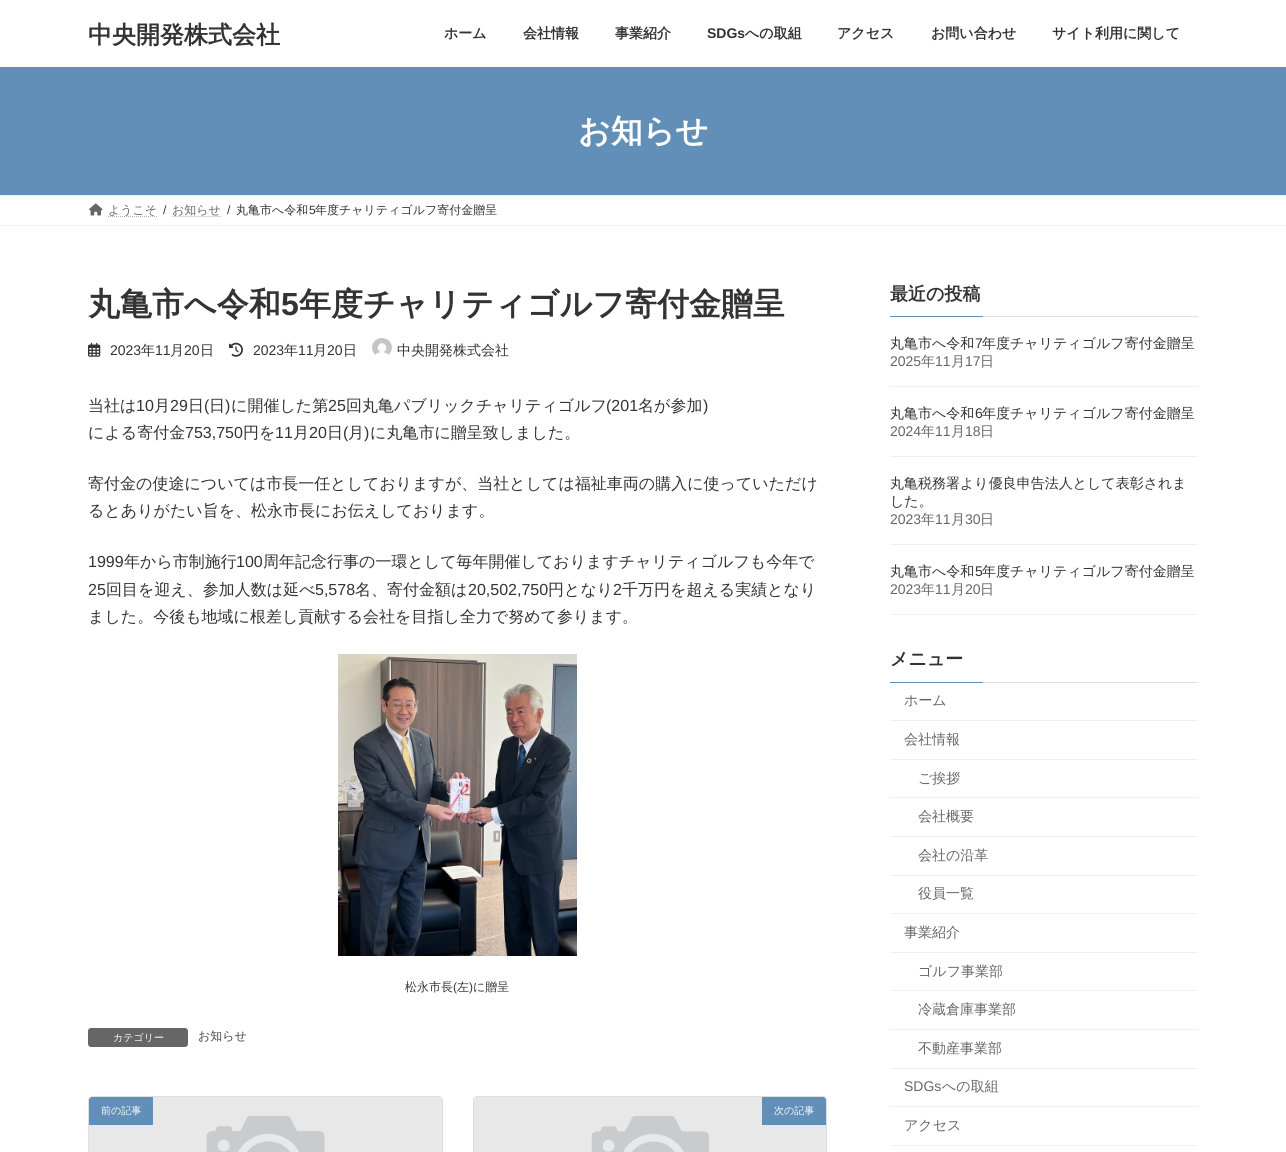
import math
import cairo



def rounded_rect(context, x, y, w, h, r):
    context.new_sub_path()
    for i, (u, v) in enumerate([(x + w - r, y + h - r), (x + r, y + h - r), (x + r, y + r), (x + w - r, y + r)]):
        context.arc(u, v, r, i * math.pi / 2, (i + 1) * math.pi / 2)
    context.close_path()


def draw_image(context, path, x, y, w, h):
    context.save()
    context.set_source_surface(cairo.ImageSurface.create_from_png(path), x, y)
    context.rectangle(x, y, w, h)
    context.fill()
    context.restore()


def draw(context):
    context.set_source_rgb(1, 1, 1)
    context.paint()
    context.set_source_rgb(97 / 255, 143 / 255, 183 / 255)
    context.rectangle(0, 67, 1286, 128)
    context.fill()
    context.set_source_rgb(240 / 255, 240 / 255, 240 / 255)
    context.rectangle(0, 195, 1286, 1)
    context.fill()
    context.rectangle(0, 225, 1286, 1)
    context.fill()
    draw_image(context, "images/1.png", 89, 203, 14, 13)
    context.new_path()
    context.move_to(108, 216.5)
    context.line_to(157, 216.5)
    context.set_source_rgb(179 / 255, 179 / 255, 179 / 255)
    context.set_line_width(1)
    context.set_dash([1, 1])
    context.stroke()
    context.new_path()
    context.move_to(172.5, 216.5)
    context.line_to(221, 216.5)
    context.stroke()
    draw_image(context, "images/2.png", 88, 342, 13, 15)
    draw_image(context, "images/3.png", 229, 342, 14, 15)
    draw_image(context, "images/4.png", 372, 338, 20, 17)
    draw_image(context, "images/5.png", 338, 654, 239, 302)
    context.set_source_rgb(102 / 255, 102 / 255, 102 / 255)
    rounded_rect(context, 88, 1028, 100, 19, 3)
    context.fill()
    rounded_rect(context, 88.5, 1096.5, 354, 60, 3.5)
    context.set_source_rgb(223 / 255, 223 / 255, 223 / 255)
    context.set_dash([])
    context.stroke()
    draw_image(context, "images/6.png", 89, 1097, 353, 55)
    context.set_source_rgb(97 / 255, 143 / 255, 183 / 255)
    context.new_path()
    context.move_to(92, 1097)
    context.line_to(153, 1097)
    context.line_to(153, 1125)
    context.line_to(89, 1125)
    context.line_to(89, 1100)
    context.curve_to(89, 1098.5, 90.5, 1097, 92, 1097)
    context.close_path()
    context.fill()
    rounded_rect(context, 473.5, 1096.5, 353, 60, 3.5)
    context.set_source_rgb(223 / 255, 223 / 255, 223 / 255)
    context.stroke()
    draw_image(context, "images/7.png", 474, 1097, 352, 55)
    context.set_source_rgb(97 / 255, 143 / 255, 183 / 255)
    context.new_path()
    context.move_to(762, 1097)
    context.line_to(823, 1097)
    context.curve_to(824.5, 1097, 826, 1098.5, 826, 1100)
    context.line_to(826, 1125)
    context.line_to(762, 1125)
    context.close_path()
    context.fill()
    context.set_source_rgb(224 / 255, 224 / 255, 224 / 255)
    context.rectangle(983, 316, 215, 1)
    context.fill()
    context.set_source_rgb(97 / 255, 143 / 255, 183 / 255)
    context.rectangle(890, 316, 93, 1)
    context.fill()
    context.set_source_rgb(240 / 255, 240 / 255, 240 / 255)
    context.rectangle(890, 386, 308, 1)
    context.fill()
    context.rectangle(890, 456, 308, 1)
    context.fill()
    context.rectangle(890, 544, 308, 1)
    context.fill()
    context.rectangle(890, 614, 308, 1)
    context.fill()
    context.set_source_rgb(224 / 255, 224 / 255, 224 / 255)
    context.rectangle(983, 682, 215, 1)
    context.fill()
    context.set_source_rgb(97 / 255, 143 / 255, 183 / 255)
    context.rectangle(890, 682, 93, 1)
    context.fill()
    context.set_source_rgb(240 / 255, 240 / 255, 240 / 255)
    context.rectangle(890, 720, 308, 1)
    context.fill()
    context.rectangle(890, 759, 308, 1)
    context.fill()
    context.rectangle(890, 797, 308, 1)
    context.fill()
    context.rectangle(890, 836, 308, 1)
    context.fill()
    context.rectangle(890, 875, 308, 1)
    context.fill()
    context.rectangle(890, 913, 308, 1)
    context.fill()
    context.rectangle(890, 952, 308, 1)
    context.fill()
    context.rectangle(890, 990, 308, 1)
    context.fill()
    context.rectangle(890, 1029, 308, 1)
    context.fill()
    context.rectangle(890, 1068, 308, 1)
    context.fill()
    context.rectangle(890, 1106, 308, 1)
    context.fill()
    context.rectangle(890, 1145, 308, 1)
    context.fill()
    context.select_font_face("WenQuanYi Zen Hei", cairo.FontSlant.NORMAL, cairo.FontWeight.BOLD)
    context.set_font_size(24)
    context.set_source_rgb(51 / 255, 51 / 255, 51 / 255)
    context.move_to(88, 43)
    context.show_text("中央開発株式会社")
    context.set_font_size(14)
    context.move_to(444, 38)
    context.show_text("ホーム")
    context.move_to(523, 38)
    context.show_text("会社情報")
    context.move_to(615, 38)
    context.show_text("事業紹介")
    context.select_font_face("Liberation Sans", cairo.FontSlant.NORMAL, cairo.FontWeight.BOLD)
    context.move_to(707, 38)
    context.show_text("SDGs")
    context.select_font_face("WenQuanYi Zen Hei", cairo.FontSlant.NORMAL, cairo.FontWeight.BOLD)
    context.move_to(745, 38)
    context.show_text("への取組")
    context.move_to(837, 38)
    context.show_text("アクセス")
    context.move_to(931, 38)
    context.show_text("お問い合わせ")
    context.move_to(1052, 38)
    context.show_text("サイト利用に関して")
    context.set_font_size(32)
    context.set_source_rgb(1, 1, 1)
    context.move_to(578, 142)
    context.show_text("お知らせ")
    context.select_font_face("WenQuanYi Zen Hei Medium")
    context.set_font_size(12)
    context.set_source_rgb(102 / 255, 102 / 255, 102 / 255)
    context.move_to(108, 214)
    context.show_text("ようこそ")
    context.select_font_face("Liberation Sans")
    context.set_source_rgb(51 / 255, 51 / 255, 51 / 255)
    context.move_to(163, 214)
    context.show_text("/")
    context.select_font_face("WenQuanYi Zen Hei Medium")
    context.set_source_rgb(102 / 255, 102 / 255, 102 / 255)
    context.move_to(172, 214)
    context.show_text("お知らせ")
    context.select_font_face("Liberation Sans")
    context.set_source_rgb(51 / 255, 51 / 255, 51 / 255)
    context.move_to(227, 214)
    context.show_text("/")
    context.select_font_face("WenQuanYi Zen Hei Medium")
    context.move_to(236, 214)
    context.show_text("丸亀市へ令和")
    context.select_font_face("Liberation Sans")
    context.move_to(309, 214)
    context.show_text("5")
    context.select_font_face("WenQuanYi Zen Hei Medium")
    context.move_to(315, 214)
    context.show_text("年度チャリティゴルフ寄付金贈呈")
    context.select_font_face("WenQuanYi Zen Hei", cairo.FontSlant.NORMAL, cairo.FontWeight.BOLD)
    context.set_font_size(32)
    context.move_to(88, 315)
    context.show_text("丸亀市へ令和")
    context.select_font_face("Liberation Sans", cairo.FontSlant.NORMAL, cairo.FontWeight.BOLD)
    context.move_to(281, 315)
    context.show_text("5")
    context.select_font_face("WenQuanYi Zen Hei", cairo.FontSlant.NORMAL, cairo.FontWeight.BOLD)
    context.move_to(299, 315)
    context.show_text("年度チャリティゴルフ寄付金贈呈")
    context.select_font_face("Liberation Sans")
    context.set_font_size(14)
    context.move_to(110, 355)
    context.show_text("2023")
    context.select_font_face("WenQuanYi Zen Hei Medium")
    context.move_to(141, 355)
    context.show_text("年")
    context.select_font_face("Liberation Sans")
    context.move_to(155, 355)
    context.show_text("11")
    context.select_font_face("WenQuanYi Zen Hei Medium")
    context.move_to(170, 355)
    context.show_text("月")
    context.select_font_face("Liberation Sans")
    context.move_to(184, 355)
    context.show_text("20")
    context.select_font_face("WenQuanYi Zen Hei Medium")
    context.move_to(200, 355)
    context.show_text("日")
    context.select_font_face("Liberation Sans")
    context.move_to(253, 355)
    context.show_text("2023")
    context.select_font_face("WenQuanYi Zen Hei Medium")
    context.move_to(284, 355)
    context.show_text("年")
    context.select_font_face("Liberation Sans")
    context.move_to(298, 355)
    context.show_text("11")
    context.select_font_face("WenQuanYi Zen Hei Medium")
    context.move_to(313, 355)
    context.show_text("月")
    context.select_font_face("Liberation Sans")
    context.move_to(327, 355)
    context.show_text("20")
    context.select_font_face("WenQuanYi Zen Hei Medium")
    context.move_to(343, 355)
    context.show_text("日")
    context.move_to(397, 355)
    context.show_text("中央開発株式会社")
    context.set_font_size(16)
    context.move_to(88, 411)
    context.show_text("当社は")
    context.select_font_face("Liberation Sans")
    context.move_to(136, 411)
    context.show_text("10")
    context.select_font_face("WenQuanYi Zen Hei Medium")
    context.move_to(154, 411)
    context.show_text("月")
    context.select_font_face("Liberation Sans")
    context.move_to(170, 411)
    context.show_text("29")
    context.select_font_face("WenQuanYi Zen Hei Medium")
    context.move_to(188, 411)
    context.show_text("日")
    context.select_font_face("Liberation Sans")
    context.move_to(204, 411)
    context.show_text("(")
    context.select_font_face("WenQuanYi Zen Hei Medium")
    context.move_to(209, 411)
    context.show_text("日")
    context.select_font_face("Liberation Sans")
    context.move_to(225, 411)
    context.show_text(")")
    context.select_font_face("WenQuanYi Zen Hei Medium")
    context.move_to(231, 411)
    context.show_text("に開催した第")
    context.select_font_face("Liberation Sans")
    context.move_to(328, 411)
    context.show_text("25")
    context.select_font_face("WenQuanYi Zen Hei Medium")
    context.move_to(346, 411)
    context.show_text("回丸亀パブリックチャリティゴルフ")
    context.select_font_face("Liberation Sans")
    context.move_to(606, 411)
    context.show_text("(201")
    context.select_font_face("WenQuanYi Zen Hei Medium")
    context.move_to(638, 411)
    context.show_text("名が参加")
    context.select_font_face("Liberation Sans")
    context.move_to(703, 411)
    context.show_text(")")
    context.select_font_face("WenQuanYi Zen Hei Medium")
    context.move_to(88, 438)
    context.show_text("による寄付金")
    context.select_font_face("Liberation Sans")
    context.move_to(185, 438)
    context.show_text("753,750")
    context.select_font_face("WenQuanYi Zen Hei Medium")
    context.move_to(243, 438)
    context.show_text("円を")
    context.select_font_face("Liberation Sans")
    context.move_to(275, 438)
    context.show_text("11")
    context.select_font_face("WenQuanYi Zen Hei Medium")
    context.move_to(293, 438)
    context.show_text("月")
    context.select_font_face("Liberation Sans")
    context.move_to(309, 438)
    context.show_text("20")
    context.select_font_face("WenQuanYi Zen Hei Medium")
    context.move_to(327, 438)
    context.show_text("日")
    context.select_font_face("Liberation Sans")
    context.move_to(343, 438)
    context.show_text("(")
    context.select_font_face("WenQuanYi Zen Hei Medium")
    context.move_to(348, 438)
    context.show_text("月")
    context.select_font_face("Liberation Sans")
    context.move_to(364, 438)
    context.show_text(")")
    context.select_font_face("WenQuanYi Zen Hei Medium")
    context.move_to(370, 438)
    context.show_text("に丸亀市に贈呈致しました。")
    context.move_to(88, 489)
    context.show_text("寄付金の使途については市長一任としておりますが、当社としては福祉車両の購入に使っていただけ")
    context.move_to(88, 516)
    context.show_text("るとありがたい旨を、松永市長にお伝えしております。")
    context.select_font_face("Liberation Sans")
    context.move_to(88, 567)
    context.show_text("1999")
    context.select_font_face("WenQuanYi Zen Hei Medium")
    context.move_to(124, 567)
    context.show_text("年から市制施行")
    context.select_font_face("Liberation Sans")
    context.move_to(236, 567)
    context.show_text("100")
    context.select_font_face("WenQuanYi Zen Hei Medium")
    context.move_to(263, 567)
    context.show_text("周年記念行事の一環として毎年開催しておりますチャリティゴルフも今年で")
    context.select_font_face("Liberation Sans")
    context.move_to(88, 595)
    context.show_text("25")
    context.select_font_face("WenQuanYi Zen Hei Medium")
    context.move_to(106, 595)
    context.show_text("回目を迎え、参加人数は延べ")
    context.select_font_face("Liberation Sans")
    context.move_to(315, 595)
    context.show_text("5,578")
    context.select_font_face("WenQuanYi Zen Hei Medium")
    context.move_to(355, 595)
    context.show_text("名、寄付金額は")
    context.select_font_face("Liberation Sans")
    context.move_to(468, 595)
    context.show_text("20,502,750")
    context.select_font_face("WenQuanYi Zen Hei Medium")
    context.move_to(548, 595)
    context.show_text("円となり")
    context.select_font_face("Liberation Sans")
    context.move_to(613, 595)
    context.show_text("2")
    context.select_font_face("WenQuanYi Zen Hei Medium")
    context.move_to(622, 595)
    context.show_text("千万円を超える実績となり")
    context.move_to(88, 622)
    context.show_text("ました。今後も地域に根差し貢献する会社を目指し全力で努めて参ります。")
    context.set_font_size(12)
    context.move_to(405, 991)
    context.show_text("松永市長")
    context.select_font_face("Liberation Sans")
    context.move_to(453, 991)
    context.show_text("(")
    context.select_font_face("WenQuanYi Zen Hei Medium")
    context.move_to(457, 991)
    context.show_text("左")
    context.select_font_face("Liberation Sans")
    context.move_to(469, 991)
    context.show_text(")")
    context.select_font_face("WenQuanYi Zen Hei Medium")
    context.move_to(473, 991)
    context.show_text("に贈呈")
    context.set_font_size(10)
    context.set_source_rgb(1, 1, 1)
    context.move_to(113, 1041)
    context.show_text("カテゴリー")
    context.set_font_size(12)
    context.set_source_rgb(70 / 255, 70 / 255, 70 / 255)
    context.move_to(198, 1040)
    context.show_text("お知らせ")
    context.set_font_size(10)
    context.set_source_rgb(1, 1, 1)
    context.move_to(101, 1114)
    context.show_text("前の記事")
    context.move_to(774, 1114)
    context.show_text("次の記事")
    context.select_font_face("WenQuanYi Zen Hei", cairo.FontSlant.NORMAL, cairo.FontWeight.BOLD)
    context.set_font_size(18)
    context.set_source_rgb(51 / 255, 51 / 255, 51 / 255)
    context.move_to(890, 300)
    context.show_text("最近の投稿")
    context.select_font_face("WenQuanYi Zen Hei Medium")
    context.set_font_size(14)
    context.move_to(890, 348)
    context.show_text("丸亀市へ令和")
    context.select_font_face("Liberation Sans")
    context.move_to(975, 348)
    context.show_text("7")
    context.select_font_face("WenQuanYi Zen Hei Medium")
    context.move_to(982, 348)
    context.show_text("年度チャリティゴルフ寄付金贈呈")
    context.select_font_face("Liberation Sans")
    context.set_source_rgb(102 / 255, 102 / 255, 102 / 255)
    context.move_to(890, 366)
    context.show_text("2025")
    context.select_font_face("WenQuanYi Zen Hei Medium")
    context.move_to(921, 366)
    context.show_text("年")
    context.select_font_face("Liberation Sans")
    context.move_to(935, 366)
    context.show_text("11")
    context.select_font_face("WenQuanYi Zen Hei Medium")
    context.move_to(951, 366)
    context.show_text("月")
    context.select_font_face("Liberation Sans")
    context.move_to(965, 366)
    context.show_text("17")
    context.select_font_face("WenQuanYi Zen Hei Medium")
    context.move_to(980, 366)
    context.show_text("日")
    context.set_source_rgb(51 / 255, 51 / 255, 51 / 255)
    context.move_to(890, 418)
    context.show_text("丸亀市へ令和")
    context.select_font_face("Liberation Sans")
    context.move_to(975, 418)
    context.show_text("6")
    context.select_font_face("WenQuanYi Zen Hei Medium")
    context.move_to(982, 418)
    context.show_text("年度チャリティゴルフ寄付金贈呈")
    context.select_font_face("Liberation Sans")
    context.set_source_rgb(102 / 255, 102 / 255, 102 / 255)
    context.move_to(890, 436)
    context.show_text("2024")
    context.select_font_face("WenQuanYi Zen Hei Medium")
    context.move_to(921, 436)
    context.show_text("年")
    context.select_font_face("Liberation Sans")
    context.move_to(935, 436)
    context.show_text("11")
    context.select_font_face("WenQuanYi Zen Hei Medium")
    context.move_to(951, 436)
    context.show_text("月")
    context.select_font_face("Liberation Sans")
    context.move_to(965, 436)
    context.show_text("18")
    context.select_font_face("WenQuanYi Zen Hei Medium")
    context.move_to(980, 436)
    context.show_text("日")
    context.set_source_rgb(51 / 255, 51 / 255, 51 / 255)
    context.move_to(890, 488)
    context.show_text("丸亀税務署より優良申告法人として表彰されま")
    context.move_to(890, 506)
    context.show_text("した。")
    context.select_font_face("Liberation Sans")
    context.set_source_rgb(102 / 255, 102 / 255, 102 / 255)
    context.move_to(890, 524)
    context.show_text("2023")
    context.select_font_face("WenQuanYi Zen Hei Medium")
    context.move_to(921, 524)
    context.show_text("年")
    context.select_font_face("Liberation Sans")
    context.move_to(935, 524)
    context.show_text("11")
    context.select_font_face("WenQuanYi Zen Hei Medium")
    context.move_to(951, 524)
    context.show_text("月")
    context.select_font_face("Liberation Sans")
    context.move_to(965, 524)
    context.show_text("30")
    context.select_font_face("WenQuanYi Zen Hei Medium")
    context.move_to(980, 524)
    context.show_text("日")
    context.set_source_rgb(51 / 255, 51 / 255, 51 / 255)
    context.move_to(890, 576)
    context.show_text("丸亀市へ令和")
    context.select_font_face("Liberation Sans")
    context.move_to(975, 576)
    context.show_text("5")
    context.select_font_face("WenQuanYi Zen Hei Medium")
    context.move_to(982, 576)
    context.show_text("年度チャリティゴルフ寄付金贈呈")
    context.select_font_face("Liberation Sans")
    context.set_source_rgb(102 / 255, 102 / 255, 102 / 255)
    context.move_to(890, 594)
    context.show_text("2023")
    context.select_font_face("WenQuanYi Zen Hei Medium")
    context.move_to(921, 594)
    context.show_text("年")
    context.select_font_face("Liberation Sans")
    context.move_to(935, 594)
    context.show_text("11")
    context.select_font_face("WenQuanYi Zen Hei Medium")
    context.move_to(951, 594)
    context.show_text("月")
    context.select_font_face("Liberation Sans")
    context.move_to(965, 594)
    context.show_text("20")
    context.select_font_face("WenQuanYi Zen Hei Medium")
    context.move_to(980, 594)
    context.show_text("日")
    context.select_font_face("WenQuanYi Zen Hei", cairo.FontSlant.NORMAL, cairo.FontWeight.BOLD)
    context.set_font_size(18)
    context.set_source_rgb(51 / 255, 51 / 255, 51 / 255)
    context.move_to(890, 665)
    context.show_text("メニュー")
    context.select_font_face("WenQuanYi Zen Hei Medium")
    context.set_font_size(14)
    context.set_source_rgb(102 / 255, 102 / 255, 102 / 255)
    context.move_to(904, 705)
    context.show_text("ホーム")
    context.move_to(904, 744)
    context.show_text("会社情報")
    context.move_to(918, 783)
    context.show_text("ご挨拶")
    context.move_to(918, 821)
    context.show_text("会社概要")
    context.move_to(918, 860)
    context.show_text("会社の沿革")
    context.move_to(918, 898)
    context.show_text("役員一覧")
    context.move_to(904, 937)
    context.show_text("事業紹介")
    context.move_to(918, 976)
    context.show_text("ゴルフ事業部")
    context.move_to(918, 1014)
    context.show_text("冷蔵倉庫事業部")
    context.move_to(918, 1053)
    context.show_text("不動産事業部")
    context.select_font_face("Liberation Sans")
    context.move_to(904, 1091)
    context.show_text("SDGs")
    context.select_font_face("WenQuanYi Zen Hei Medium")
    context.move_to(942, 1091)
    context.show_text("への取組")
    context.move_to(904, 1130)
    context.show_text("アクセス")


surface = cairo.ImageSurface(cairo.Format.RGB24, 1286, 1152)
context = cairo.Context(surface)
options = cairo.FontOptions()
options.set_hint_metrics(cairo.HintMetrics.OFF)
options.set_hint_style(cairo.HintStyle.NONE)
context.set_font_options(options)
context.set_miter_limit(4)
draw(context)
surface.write_to_png("out.png")
